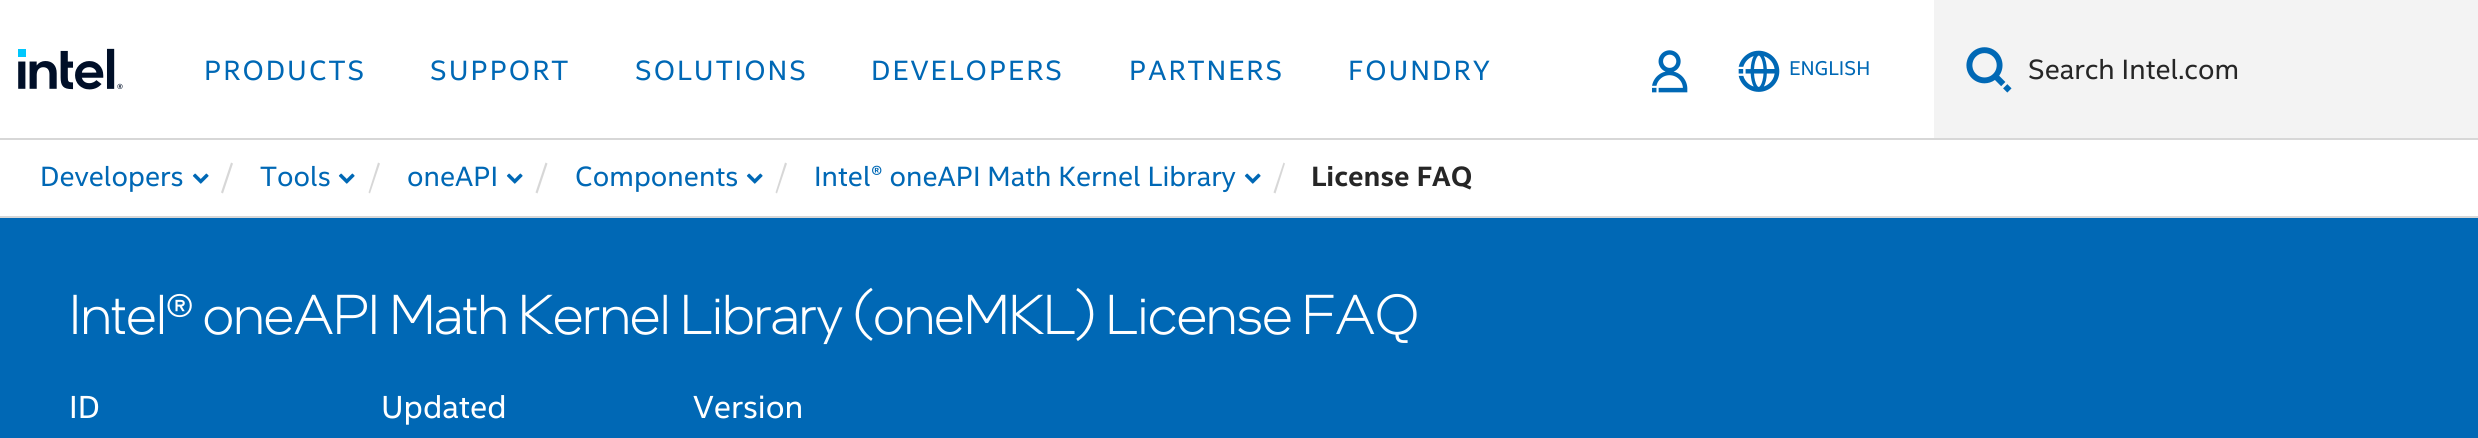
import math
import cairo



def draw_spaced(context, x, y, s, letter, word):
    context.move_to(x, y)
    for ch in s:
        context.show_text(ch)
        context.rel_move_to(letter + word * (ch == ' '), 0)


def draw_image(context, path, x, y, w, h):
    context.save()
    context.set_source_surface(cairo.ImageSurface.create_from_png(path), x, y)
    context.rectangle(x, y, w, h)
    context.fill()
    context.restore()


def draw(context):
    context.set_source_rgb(1, 1, 1)
    context.paint()
    context.set_source_rgb(215 / 255, 215 / 255, 215 / 255)
    context.rectangle(0, 138, 2478, 2)
    context.fill()
    draw_image(context, "images/1.png", 18, 48, 105, 42)
    draw_image(context, "images/2.png", 1652, 50, 36, 43)
    draw_image(context, "images/3.png", 1738, 50, 42, 42)
    context.set_source_rgb(243 / 255, 243 / 255, 243 / 255)
    context.rectangle(1934, 0, 544, 138)
    context.fill()
    draw_image(context, "images/4.png", 1966, 47, 46, 46)
    context.set_source_rgb(215 / 255, 215 / 255, 215 / 255)
    context.rectangle(0, 216, 2478, 2)
    context.fill()
    draw_image(context, "images/5.png", 192, 173, 17, 11)
    context.new_path()
    context.move_to(231, 162.5)
    context.line_to(233, 163.5)
    context.line_to(223, 193.5)
    context.line_to(221, 192.5)
    context.close_path()
    context.fill()
    draw_image(context, "images/5.png", 338, 173, 17, 11)
    context.new_path()
    context.move_to(378, 162.5)
    context.line_to(380, 163.5)
    context.line_to(370, 193.5)
    context.line_to(368.5, 192.5)
    context.close_path()
    context.fill()
    draw_image(context, "images/5.png", 506, 173, 17, 11)
    context.new_path()
    context.move_to(545.5, 162.5)
    context.line_to(547.5, 163.5)
    context.line_to(537.5, 193.5)
    context.line_to(535.5, 192.5)
    context.close_path()
    context.fill()
    draw_image(context, "images/5.png", 746, 173, 17, 11)
    context.new_path()
    context.move_to(785, 162.5)
    context.line_to(787, 163.5)
    context.line_to(777, 193.5)
    context.line_to(775.5, 192.5)
    context.close_path()
    context.fill()
    draw_image(context, "images/5.png", 1244, 173, 17, 11)
    context.new_path()
    context.move_to(1283.5, 162.5)
    context.line_to(1285, 163.5)
    context.line_to(1275.5, 193.5)
    context.line_to(1273.5, 192.5)
    context.close_path()
    context.fill()
    context.set_source_rgb(0, 104 / 255, 181 / 255)
    context.rectangle(0, 218, 2478, 220)
    context.fill()
    context.select_font_face("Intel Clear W")
    context.set_font_size(28)
    draw_spaced(context, 204, 80, "PRODUCTS", 2, 0)
    draw_spaced(context, 430, 80, "SUPPORT", 2, 0)
    draw_spaced(context, 635, 80, "SOLUTIONS", 2, 0)
    draw_spaced(context, 871, 80, "DEVELOPERS", 2, 0)
    draw_spaced(context, 1129, 80, "PARTNERS", 2, 0)
    draw_spaced(context, 1348, 80, "FOUNDRY", 2, 0)
    context.set_font_size(20)
    context.move_to(1789, 75)
    context.show_text("ENGLISH")
    context.set_font_size(28)
    context.set_source_rgb(38 / 255, 38 / 255, 38 / 255)
    context.move_to(2028, 79)
    context.show_text("Search Intel.com")
    context.set_source_rgb(0, 104 / 255, 181 / 255)
    context.move_to(40, 186)
    context.show_text("Developers")
    context.move_to(260, 186)
    context.show_text("Tools")
    context.move_to(407, 186)
    context.show_text("oneAPI")
    context.move_to(575, 186)
    context.show_text("Components")
    context.move_to(814, 186)
    context.show_text("Intel® oneAPI Math Kernel Library")
    context.select_font_face("Intel Clear W", cairo.FontSlant.NORMAL, cairo.FontWeight.BOLD)
    context.set_source_rgb(38 / 255, 38 / 255, 38 / 255)
    context.move_to(1311, 186)
    context.show_text("License FAQ")
    context.select_font_face("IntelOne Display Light")
    context.set_font_size(56)
    context.set_source_rgb(1, 1, 1)
    draw_spaced(context, 69, 334, "Intel® oneAPI Math Kernel Library (oneMKL) License FAQ", -0.45, 0)
    context.select_font_face("Intel Clear W")
    context.set_font_size(32)
    context.move_to(69, 418)
    context.show_text("ID")
    context.move_to(381, 418)
    context.show_text("Updated")
    context.move_to(693, 418)
    context.show_text("Version")


surface = cairo.ImageSurface(cairo.Format.RGB24, 2478, 438)
context = cairo.Context(surface)
options = cairo.FontOptions()
options.set_hint_metrics(cairo.HintMetrics.OFF)
options.set_hint_style(cairo.HintStyle.NONE)
context.set_font_options(options)
context.set_miter_limit(4)
draw(context)
surface.write_to_png("out.png")
